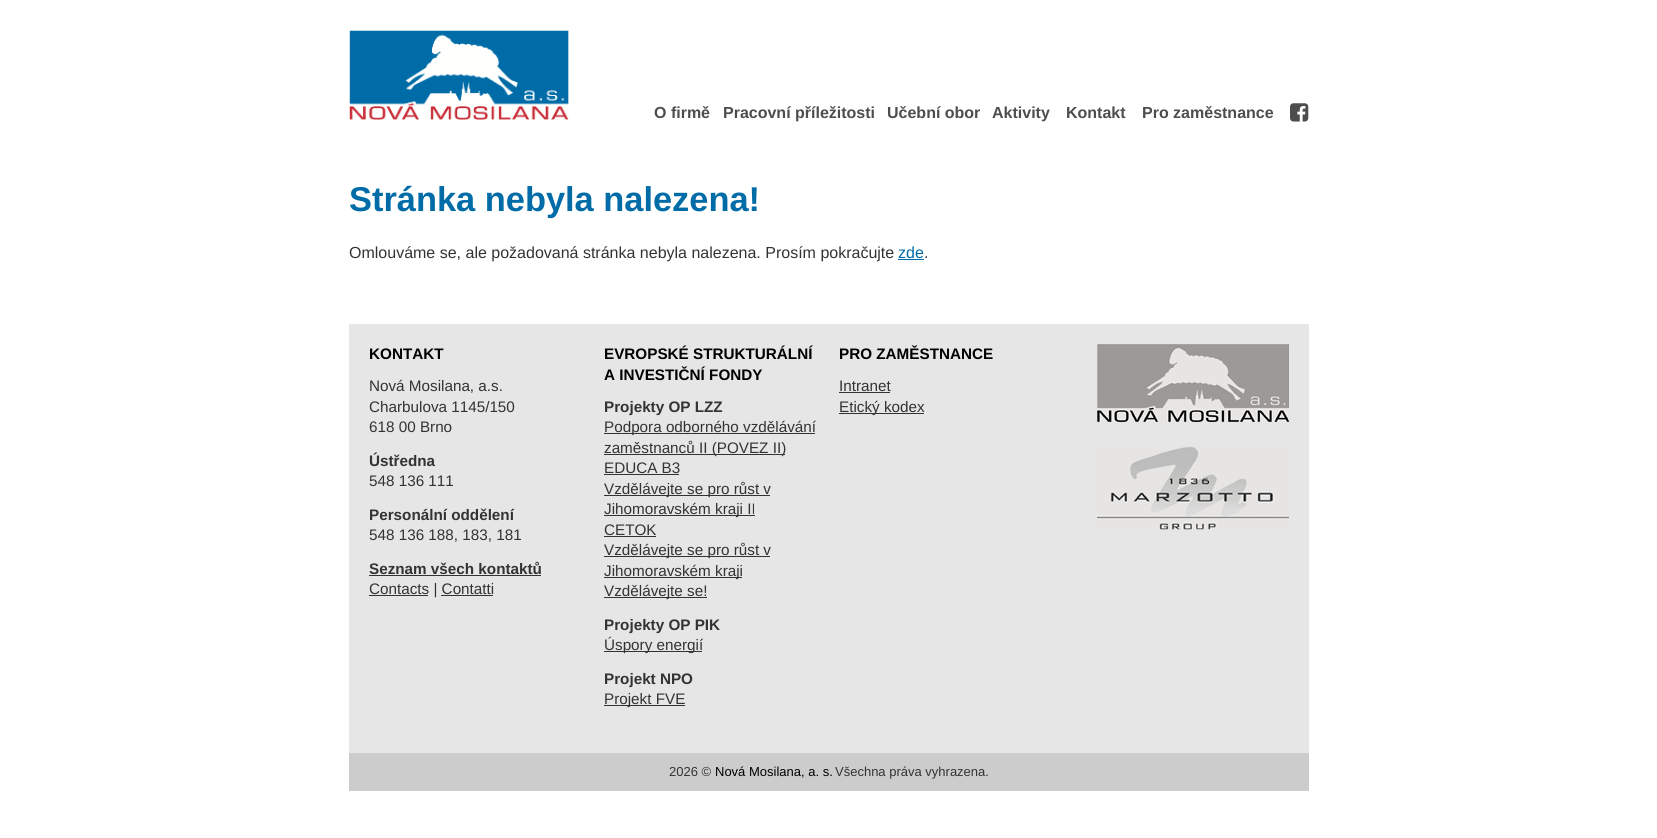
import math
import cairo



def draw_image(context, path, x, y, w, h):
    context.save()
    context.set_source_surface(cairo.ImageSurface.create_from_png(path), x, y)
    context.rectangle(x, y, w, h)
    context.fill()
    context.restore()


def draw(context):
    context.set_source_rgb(1, 1, 1)
    context.paint()
    draw_image(context, "images/1.png", 349, 30, 220, 90)
    draw_image(context, "images/2.png", 1290, 103, 19, 19)
    context.set_source_rgb(0, 108 / 255, 167 / 255)
    context.rectangle(898, 259, 26, 1)
    context.fill()
    context.set_source_rgb(230 / 255, 230 / 255, 230 / 255)
    context.rectangle(349, 324, 960, 429)
    context.fill()
    context.set_source_rgb(51 / 255, 51 / 255, 51 / 255)
    context.rectangle(369, 575, 172, 1)
    context.fill()
    context.rectangle(369, 595, 59, 1)
    context.fill()
    context.rectangle(441, 595, 52, 1)
    context.fill()
    context.rectangle(604, 433, 211, 1)
    context.fill()
    context.rectangle(604, 454, 181, 1)
    context.fill()
    context.rectangle(604, 474, 75, 1)
    context.fill()
    context.rectangle(604, 495, 166, 1)
    context.fill()
    context.rectangle(604, 515, 151, 1)
    context.fill()
    context.rectangle(604, 536, 52, 1)
    context.fill()
    context.rectangle(604, 556, 166, 1)
    context.fill()
    context.rectangle(604, 577, 138, 1)
    context.fill()
    context.rectangle(604, 597, 103, 1)
    context.fill()
    context.rectangle(604, 651, 98, 1)
    context.fill()
    context.rectangle(604, 705, 81, 1)
    context.fill()
    context.rectangle(839, 392, 51, 1)
    context.fill()
    context.rectangle(839, 413, 85, 1)
    context.fill()
    draw_image(context, "images/3.png", 1097, 344, 192, 78)
    draw_image(context, "images/4.png", 1097, 446, 192, 84)
    context.set_source_rgb(204 / 255, 204 / 255, 204 / 255)
    context.rectangle(349, 753, 960, 38)
    context.fill()
    context.select_font_face("Liberation Sans", cairo.FontSlant.NORMAL, cairo.FontWeight.BOLD)
    context.set_font_size(16)
    context.set_source_rgb(77 / 255, 77 / 255, 77 / 255)
    context.move_to(654, 118)
    context.show_text("O firmě")
    context.move_to(723, 118)
    context.show_text("Pracovní příležitosti")
    context.move_to(887, 118)
    context.show_text("Učební obor")
    context.move_to(992, 118)
    context.show_text("Aktivity")
    context.move_to(1066, 118)
    context.show_text("Kontakt")
    context.move_to(1142, 118)
    context.show_text("Pro zaměstnance")
    context.set_font_size(34.4)
    context.set_source_rgb(0, 108 / 255, 167 / 255)
    context.move_to(349, 211)
    context.show_text("Stránka nebyla nalezena!")
    context.select_font_face("Liberation Sans")
    context.set_font_size(16)
    context.set_source_rgb(51 / 255, 51 / 255, 51 / 255)
    context.move_to(349, 258)
    context.show_text("Omlouváme se, ale požadovaná stránka nebyla nalezena. Prosím pokračujte")
    context.set_source_rgb(0, 108 / 255, 167 / 255)
    context.move_to(898, 258)
    context.show_text("zde")
    context.set_source_rgb(51 / 255, 51 / 255, 51 / 255)
    context.move_to(924, 258)
    context.show_text(".")
    context.select_font_face("Liberation Sans", cairo.FontSlant.NORMAL, cairo.FontWeight.BOLD)
    context.set_font_size(15.25)
    context.set_source_rgb(0, 0, 0)
    context.move_to(369, 359)
    context.show_text("KONTAKT")
    context.select_font_face("Liberation Sans")
    context.set_source_rgb(51 / 255, 51 / 255, 51 / 255)
    context.move_to(369, 391)
    context.show_text("Nová Mosilana, a.s.")
    context.move_to(369, 412)
    context.show_text("Charbulova 1145/150")
    context.move_to(369, 432)
    context.show_text("618 00 Brno")
    context.select_font_face("Liberation Sans", cairo.FontSlant.NORMAL, cairo.FontWeight.BOLD)
    context.move_to(369, 466)
    context.show_text("Ústředna")
    context.select_font_face("Liberation Sans")
    context.move_to(369, 486)
    context.show_text("548 136 111")
    context.select_font_face("Liberation Sans", cairo.FontSlant.NORMAL, cairo.FontWeight.BOLD)
    context.move_to(369, 520)
    context.show_text("Personální oddělení")
    context.select_font_face("Liberation Sans")
    context.move_to(369, 540)
    context.show_text("548 136 188, 183, 181")
    context.select_font_face("Liberation Sans", cairo.FontSlant.NORMAL, cairo.FontWeight.BOLD)
    context.move_to(369, 574)
    context.show_text("Seznam všech kontaktů")
    context.select_font_face("Liberation Sans")
    context.move_to(369, 594)
    context.show_text("Contacts | Contatti")
    context.select_font_face("Liberation Sans", cairo.FontSlant.NORMAL, cairo.FontWeight.BOLD)
    context.set_source_rgb(0, 0, 0)
    context.move_to(604, 359)
    context.show_text("EVROPSKÉ STRUKTURÁLNÍ")
    context.move_to(604, 380)
    context.show_text("A INVESTIČNÍ FONDY")
    context.set_source_rgb(51 / 255, 51 / 255, 51 / 255)
    context.move_to(604, 412)
    context.show_text("Projekty OP LZZ")
    context.select_font_face("Liberation Sans")
    context.move_to(604, 432)
    context.show_text("Podpora odborného vzdělávání")
    context.move_to(604, 453)
    context.show_text("zaměstnanců II (POVEZ II)")
    context.move_to(604, 473)
    context.show_text("EDUCA B3")
    context.move_to(604, 494)
    context.show_text("Vzdělávejte se pro růst v")
    context.move_to(604, 514)
    context.show_text("Jihomoravském kraji II")
    context.move_to(604, 535)
    context.show_text("CETOK")
    context.move_to(604, 555)
    context.show_text("Vzdělávejte se pro růst v")
    context.move_to(604, 576)
    context.show_text("Jihomoravském kraji")
    context.move_to(604, 596)
    context.show_text("Vzdělávejte se!")
    context.select_font_face("Liberation Sans", cairo.FontSlant.NORMAL, cairo.FontWeight.BOLD)
    context.move_to(604, 630)
    context.show_text("Projekty OP PIK")
    context.select_font_face("Liberation Sans")
    context.move_to(604, 650)
    context.show_text("Úspory energií")
    context.select_font_face("Liberation Sans", cairo.FontSlant.NORMAL, cairo.FontWeight.BOLD)
    context.move_to(604, 684)
    context.show_text("Projekt NPO")
    context.select_font_face("Liberation Sans")
    context.move_to(604, 704)
    context.show_text("Projekt FVE")
    context.select_font_face("Liberation Sans", cairo.FontSlant.NORMAL, cairo.FontWeight.BOLD)
    context.set_source_rgb(0, 0, 0)
    context.move_to(839, 359)
    context.show_text("PRO ZAMĚSTNANCE")
    context.select_font_face("Liberation Sans")
    context.set_source_rgb(51 / 255, 51 / 255, 51 / 255)
    context.move_to(839, 391)
    context.show_text("Intranet")
    context.move_to(839, 412)
    context.show_text("Etický kodex")
    context.set_font_size(13)
    context.move_to(669, 776)
    context.show_text("2026 ©")
    context.set_source_rgb(0, 0, 0)
    context.move_to(715, 776)
    context.show_text("Nová Mosilana, a. s.")
    context.set_source_rgb(51 / 255, 51 / 255, 51 / 255)
    context.move_to(835, 776)
    context.show_text("Všechna práva vyhrazena.")


surface = cairo.ImageSurface(cairo.Format.RGB24, 1657, 838)
context = cairo.Context(surface)
options = cairo.FontOptions()
options.set_hint_metrics(cairo.HintMetrics.OFF)
options.set_hint_style(cairo.HintStyle.NONE)
context.set_font_options(options)
context.set_miter_limit(4)
draw(context)
surface.write_to_png("out.png")
